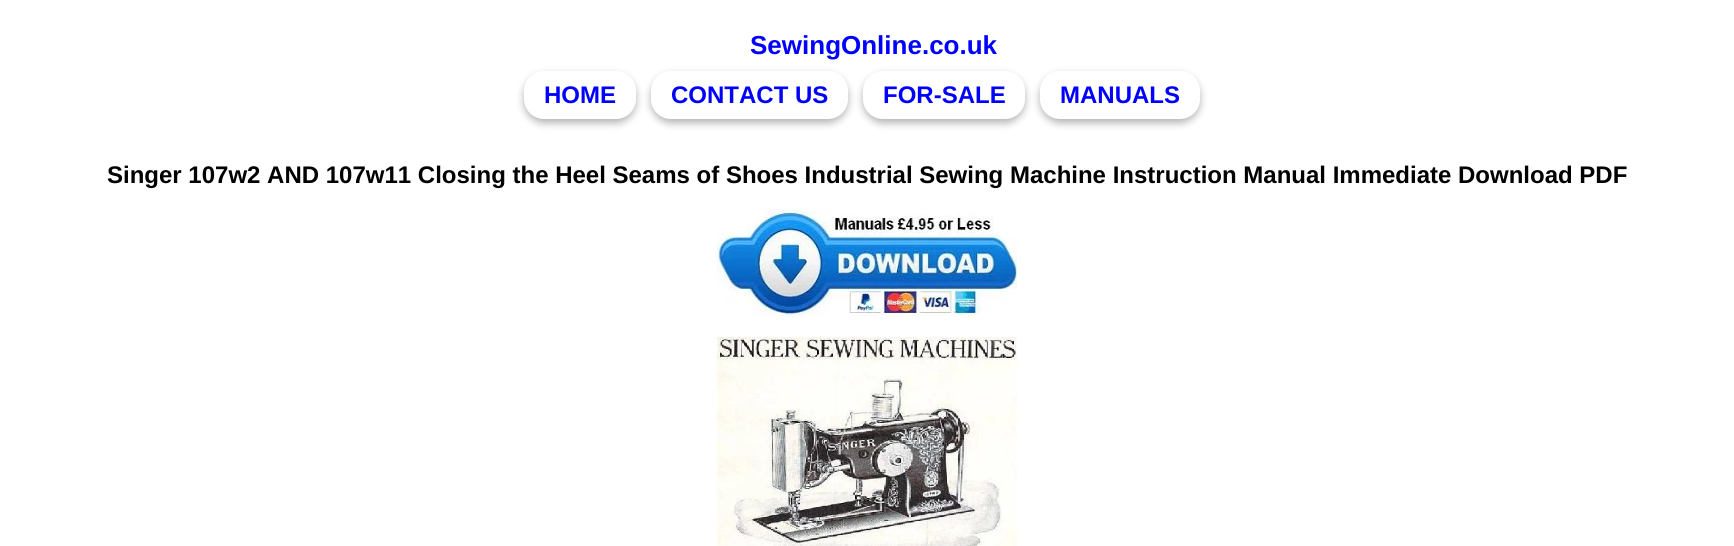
import math
import cairo



def rounded_rect(context, x, y, w, h, r):
    context.new_sub_path()
    for i, (u, v) in enumerate([(x + w - r, y + h - r), (x + r, y + h - r), (x + r, y + r), (x + w - r, y + r)]):
        context.arc(u, v, r, i * math.pi / 2, (i + 1) * math.pi / 2)
    context.close_path()


def draw_shadow(context, x, y, w, h, r, blur, alpha):
    context.push_group_with_content(cairo.Content.ALPHA)
    context.set_operator(cairo.Operator.SOURCE)
    for i in range(15, -16, -2):
        e = blur * i / 6
        if min(w, h) + 2 * e > 0:
            context.set_source_rgba(0, 0, 0, alpha * math.erfc((i - 1) / 8.5) / 2)
            rounded_rect(context, x - e, y - e, w + 2 * e, h + 2 * e, max(0, min(r + e + blur * .6, min(w, h) / 2 + e)))
            context.fill()
    context.mask(context.pop_group())


def draw_image(context, path, x, y, w, h):
    context.save()
    context.set_source_surface(cairo.ImageSurface.create_from_png(path), x, y)
    context.rectangle(x, y, w, h)
    context.fill()
    context.restore()


def draw(context):
    context.set_source_rgb(1, 1, 1)
    context.paint()
    context.set_source_rgb(0, 0, 0)
    draw_shadow(context, 524, 75, 112, 48, 20, 4, 0.3)
    context.set_source_rgb(1, 1, 1)
    rounded_rect(context, 524, 71, 112, 48, 20)
    context.fill()
    context.set_source_rgb(0, 0, 0)
    draw_shadow(context, 651, 75, 197, 48, 20, 4, 0.3)
    context.set_source_rgb(1, 1, 1)
    rounded_rect(context, 651, 71, 197, 48, 20)
    context.fill()
    context.set_source_rgb(0, 0, 0)
    draw_shadow(context, 863, 75, 162, 48, 20, 4, 0.3)
    context.set_source_rgb(1, 1, 1)
    rounded_rect(context, 863, 71, 162, 48, 20)
    context.fill()
    context.set_source_rgb(0, 0, 0)
    draw_shadow(context, 1040, 75, 160, 48, 20, 4, 0.3)
    context.set_source_rgb(1, 1, 1)
    rounded_rect(context, 1040, 71, 160, 48, 20)
    context.fill()
    draw_image(context, "images/1.png", 717, 209, 300, 108)
    draw_image(context, "images/2.png", 717, 337, 300, 209)
    context.select_font_face("Liberation Sans", cairo.FontSlant.NORMAL, cairo.FontWeight.BOLD)
    context.set_font_size(26)
    context.set_source_rgb(0, 0, 1)
    context.move_to(750, 54)
    context.show_text("SewingOnline.co.uk")
    context.set_font_size(24)
    context.move_to(544, 103)
    context.show_text("HOME")
    context.move_to(671, 103)
    context.show_text("CONTACT US")
    context.move_to(883, 103)
    context.show_text("FOR-SALE")
    context.move_to(1060, 103)
    context.show_text("MANUALS")
    context.set_source_rgb(0, 0, 0)
    context.move_to(107, 183)
    context.show_text("Singer 107w2 AND 107w11 Closing the Heel Seams of Shoes Industrial Sewing Machine Instruction Manual Immediate Download PDF")


surface = cairo.ImageSurface(cairo.Format.RGB24, 1734, 546)
context = cairo.Context(surface)
options = cairo.FontOptions()
options.set_hint_metrics(cairo.HintMetrics.OFF)
options.set_hint_style(cairo.HintStyle.NONE)
context.set_font_options(options)
context.set_miter_limit(4)
draw(context)
surface.write_to_png("out.png")
